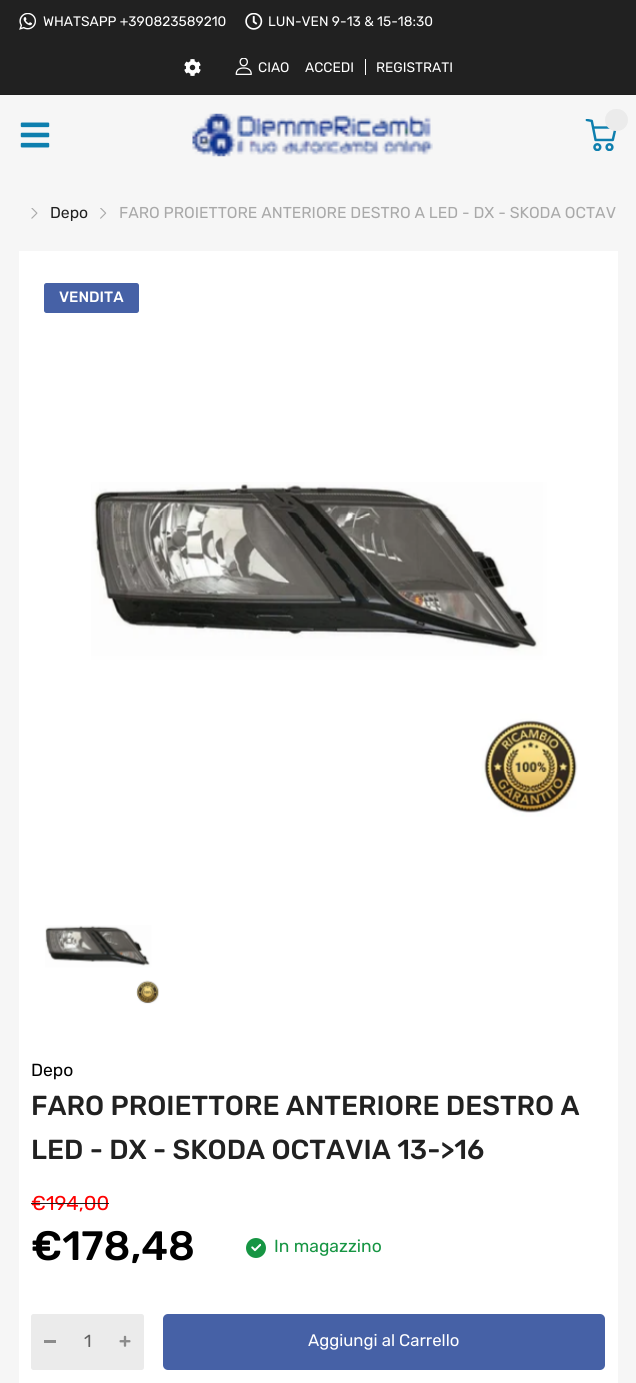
import math
import cairo



def rounded_rect(context, x, y, w, h, r):
    context.new_sub_path()
    for i, (u, v) in enumerate([(x + w - r, y + h - r), (x + r, y + h - r), (x + r, y + r), (x + w - r, y + r)]):
        context.arc(u, v, r, i * math.pi / 2, (i + 1) * math.pi / 2)
    context.close_path()


def draw_image(context, path, x, y, w, h):
    context.save()
    context.set_source_surface(cairo.ImageSurface.create_from_png(path), x, y)
    context.rectangle(x, y, w, h)
    context.fill()
    context.restore()


def draw(context):
    context.set_source_rgb(246 / 255, 246 / 255, 246 / 255)
    context.paint()
    context.set_source_rgb(33 / 255, 33 / 255, 33 / 255)
    context.rectangle(0, 0, 636, 94)
    context.fill()
    context.set_source_rgb(30 / 255, 30 / 255, 30 / 255)
    context.rectangle(0, 94, 636, 1)
    context.fill()
    draw_image(context, "images/1.png", 19, 13, 17, 17)
    draw_image(context, "images/2.png", 245, 13, 18, 17)
    draw_image(context, "images/3.png", 184, 59, 17, 17)
    draw_image(context, "images/4.png", 235, 58, 17, 17)
    context.set_source_rgb(1, 1, 1)
    context.rectangle(365, 59, 1, 16)
    context.fill()
    draw_image(context, "images/5.png", 20, 122, 30, 26)
    draw_image(context, "images/6.png", 192, 113, 241, 44)
    draw_image(context, "images/7.png", 585, 119, 32, 32)
    context.set_source_rgb(235 / 255, 235 / 255, 235 / 255)
    rounded_rect(context, 605, 109, 23, 22, 11)
    context.fill()
    draw_image(context, "images/8.png", 31, 208, 7, 11)
    draw_image(context, "images/9.png", 100, 208, 7, 11)
    context.set_source_rgb(1, 1, 1)
    context.rectangle(19, 251, 599, 1132)
    context.fill()
    context.set_source_rgb(70 / 255, 97 / 255, 166 / 255)
    rounded_rect(context, 44, 283, 95, 30, 2.5)
    context.fill()
    draw_image(context, "images/10.png", 91, 482, 487, 335)
    draw_image(context, "images/11.png", 45, 925, 114, 79)
    context.set_source_rgb(22 / 255, 149 / 255, 67 / 255)
    context.arc(256, 1248, 10, 0, 2 * math.pi)
    context.fill()
    draw_image(context, "images/12.png", 251, 1243, 10, 9)
    context.set_source_rgb(235 / 255, 235 / 255, 235 / 255)
    rounded_rect(context, 31, 1314, 113, 56, 2.5)
    context.fill()
    context.set_source_rgb(139 / 255, 139 / 255, 139 / 255)
    context.rectangle(44, 1340, 12, 3)
    context.fill()
    draw_image(context, "images/13.png", 119, 1335, 12, 12)
    context.set_source_rgb(70 / 255, 97 / 255, 166 / 255)
    rounded_rect(context, 163, 1314, 442, 56, 5)
    context.fill()
    context.select_font_face("Rubik")
    context.set_font_size(13.75)
    context.set_source_rgb(1, 1, 1)
    context.move_to(43, 26)
    context.show_text("WHATSAPP +390823589210")
    context.move_to(268, 26)
    context.show_text("LUN-VEN 9-13 & 15-18:30")
    context.move_to(258, 72)
    context.show_text("CIAO")
    context.move_to(305, 72)
    context.show_text("ACCEDI")
    context.move_to(376, 72)
    context.show_text("REGISTRATI")
    context.set_font_size(15.75)
    context.set_source_rgb(33 / 255, 33 / 255, 33 / 255)
    context.move_to(50, 218)
    context.show_text("Depo")
    context.set_source_rgb(169 / 255, 169 / 255, 169 / 255)
    context.move_to(119, 218)
    context.show_text("FARO PROIETTORE ANTERIORE DESTRO A LED - DX - SKODA OCTAV")
    context.select_font_face("Rubik Medium")
    context.set_font_size(15)
    context.set_source_rgb(1, 1, 1)
    context.move_to(59, 302)
    context.show_text("VENDITA")
    context.select_font_face("Rubik")
    context.set_font_size(17.5)
    context.set_source_rgb(0, 0, 0)
    context.move_to(31, 1076)
    context.show_text("Depo")
    context.select_font_face("Rubik Medium")
    context.set_font_size(27.5)
    context.set_source_rgb(33 / 255, 33 / 255, 33 / 255)
    context.move_to(31, 1115)
    context.show_text("FARO PROIETTORE ANTERIORE DESTRO A")
    context.move_to(31, 1159)
    context.show_text("LED - DX - SKODA OCTAVIA 13->16")
    context.select_font_face("Rubik")
    context.set_font_size(20)
    context.set_source_rgb(1, 0, 0)
    context.move_to(31, 1210)
    context.show_text("€194,00")
    context.set_source_rgb(30 / 255, 30 / 255, 30 / 255)
    context.rectangle(31, 1203, 78, 1)
    context.fill()
    context.select_font_face("Rubik Medium")
    context.set_font_size(41)
    context.set_source_rgb(0, 0, 0)
    context.move_to(31, 1260)
    context.show_text("€178,48")
    context.select_font_face("Rubik")
    context.set_font_size(17.5)
    context.set_source_rgb(22 / 255, 149 / 255, 67 / 255)
    context.move_to(274, 1252)
    context.show_text("In magazzino")
    context.set_source_rgb(98 / 255, 98 / 255, 98 / 255)
    context.move_to(84, 1347)
    context.show_text("1")
    context.set_font_size(16.75)
    context.set_source_rgb(1, 1, 1)
    context.move_to(308, 1346)
    context.show_text("Aggiungi al Carrello")


surface = cairo.ImageSurface(cairo.Format.RGB24, 636, 1383)
context = cairo.Context(surface)
options = cairo.FontOptions()
options.set_hint_metrics(cairo.HintMetrics.OFF)
options.set_hint_style(cairo.HintStyle.NONE)
context.set_font_options(options)
context.set_miter_limit(4)
draw(context)
surface.write_to_png("out.png")
